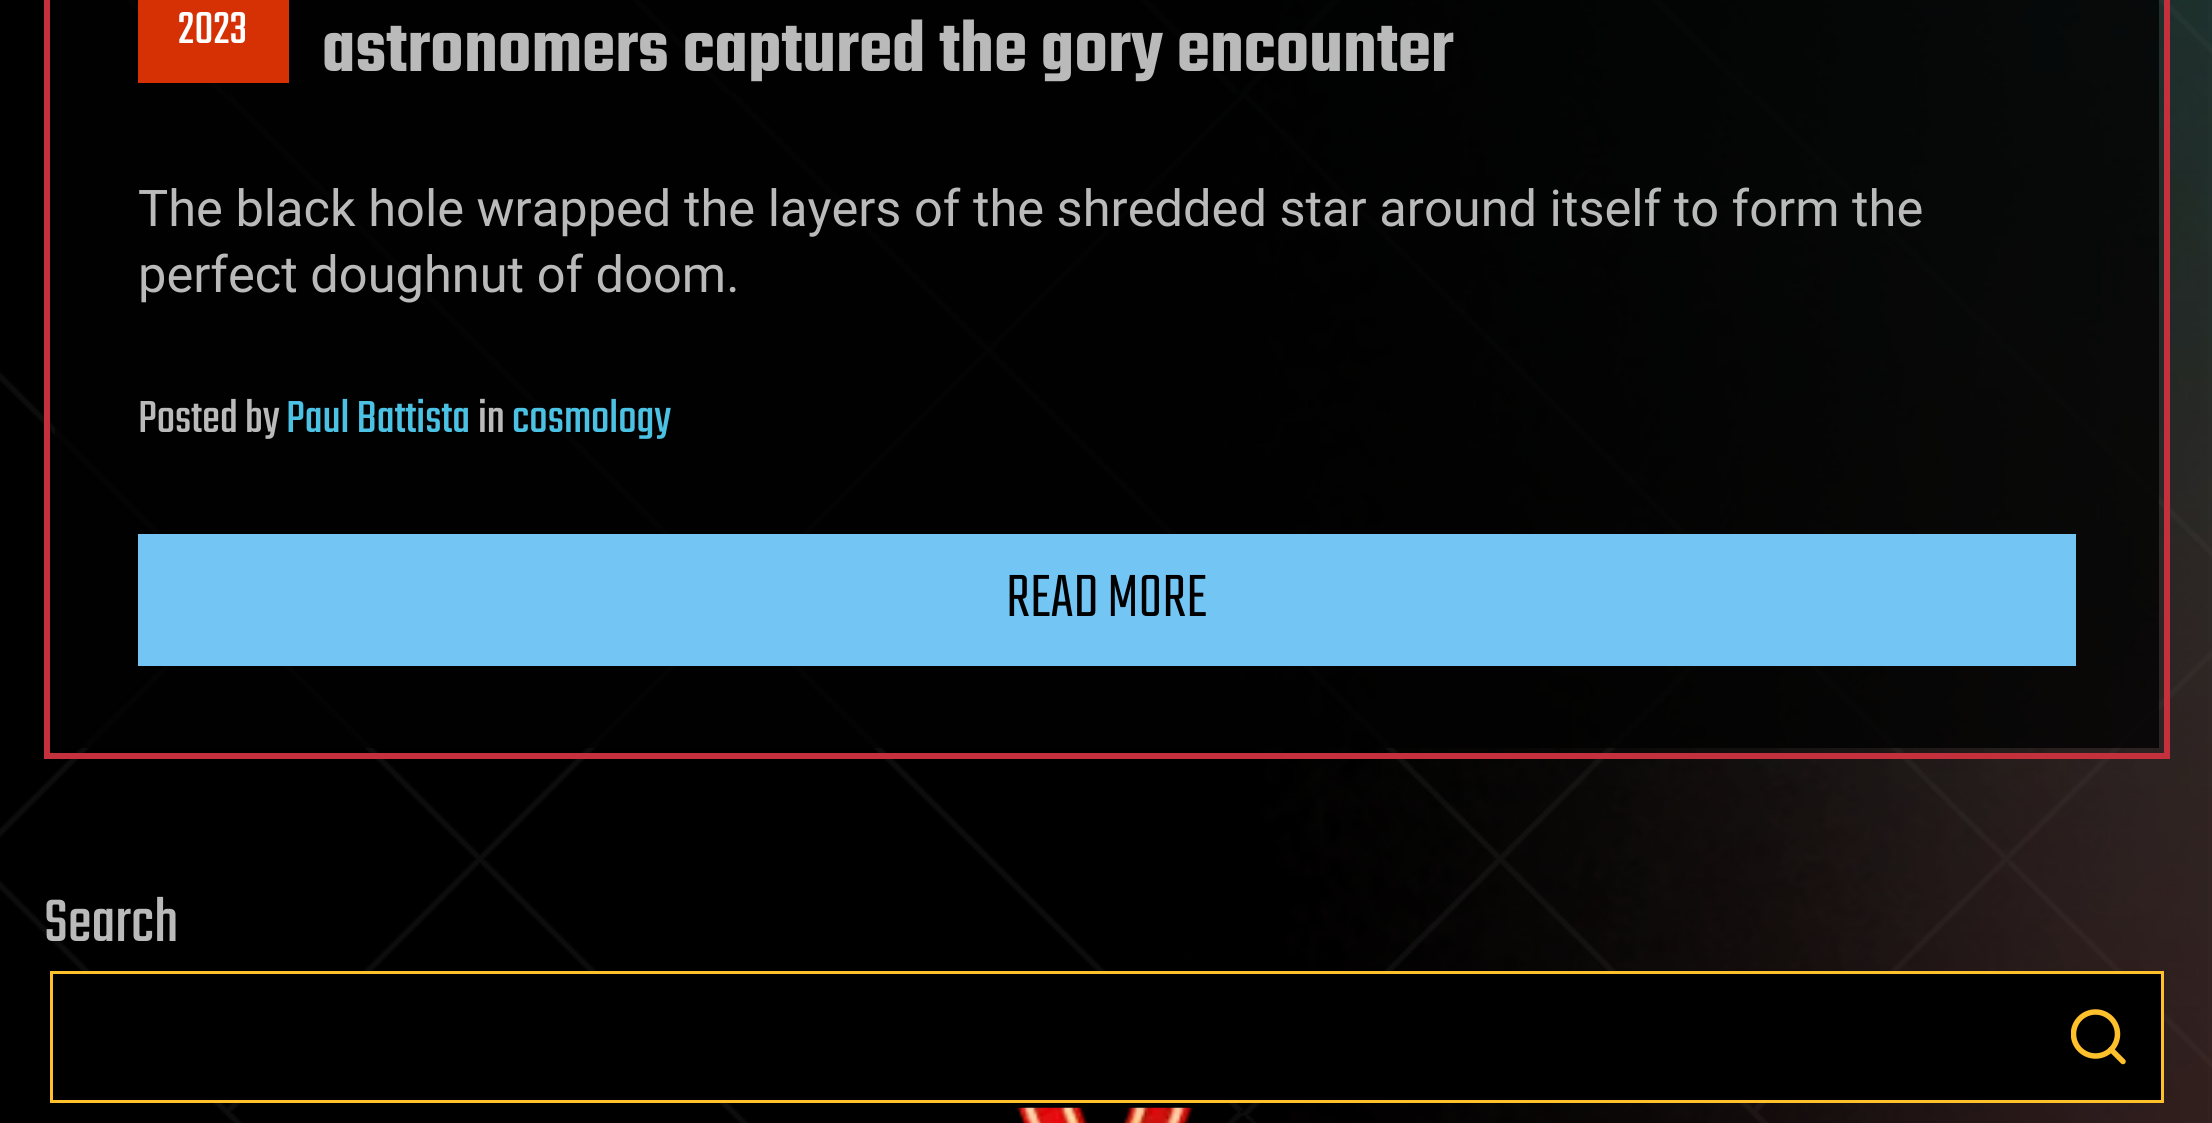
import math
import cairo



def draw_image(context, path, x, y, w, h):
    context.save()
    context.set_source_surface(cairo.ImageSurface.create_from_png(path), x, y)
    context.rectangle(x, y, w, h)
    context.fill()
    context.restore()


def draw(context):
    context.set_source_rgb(0, 0, 0)
    context.paint()
    draw_image(context, "images/1.png", 0, 0, 2212, 1123)
    context.rectangle(47, -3, 2120, 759)
    context.set_source_rgb(196 / 255, 48 / 255, 59 / 255)
    context.set_line_width(6)
    context.stroke()
    context.set_source_rgba(2 / 255, 2 / 255, 2 / 255, 0.8)
    context.rectangle(55, 0, 2104, 748)
    context.fill()
    context.set_source_rgb(213 / 255, 49 / 255, 5 / 255)
    context.rectangle(138, 0, 151, 83)
    context.fill()
    context.set_source_rgb(115 / 255, 197 / 255, 244 / 255)
    context.rectangle(138, 534, 1938, 132)
    context.fill()
    context.set_source_rgb(0, 0, 0)
    context.rectangle(85, 974, 2076, 126)
    context.fill()
    context.rectangle(51.5, 972.5, 2111, 129)
    context.set_source_rgb(1, 193 / 255, 43 / 255)
    context.set_line_width(3)
    context.stroke()
    context.save()
    context.rectangle(2071, 1009, 55, 55)
    context.clip()
    context.arc(2095.5, 1034, 22, 0, 2 * math.pi)
    context.set_line_width(5.5)
    context.stroke()
    context.restore()
    context.new_path()
    context.move_to(2123, 1061.5)
    context.line_to(2111, 1049.5)
    context.set_line_width(5.5)
    context.set_line_cap(cairo.LineCap.ROUND)
    context.set_line_join(cairo.LineJoin.ROUND)
    context.stroke()
    draw_image(context, "images/2.png", 1016, 1107, 178, 16)
    context.select_font_face("Teko")
    context.set_font_size(49.5)
    context.set_source_rgb(1, 1, 1)
    context.move_to(178, 43)
    context.show_text("2023")
    context.select_font_face("Teko SemiBold")
    context.set_font_size(77)
    context.set_source_rgb(186 / 255, 186 / 255, 186 / 255)
    context.move_to(322, 71)
    context.show_text("astronomers captured the gory encounter")
    context.select_font_face("Roboto")
    context.set_font_size(50.6)
    context.move_to(138, 226)
    context.show_text("The black hole wrapped the layers of the shredded star around itself to form the")
    context.move_to(138, 292)
    context.show_text("perfect doughnut of doom.")
    context.select_font_face("Teko")
    context.set_font_size(49.5)
    context.move_to(138, 432)
    context.show_text("Posted by")
    context.set_source_rgb(75 / 255, 193 / 255, 228 / 255)
    context.move_to(286, 432)
    context.show_text("Paul Battista")
    context.set_source_rgb(186 / 255, 186 / 255, 186 / 255)
    context.move_to(478, 432)
    context.show_text("in")
    context.set_source_rgb(75 / 255, 193 / 255, 228 / 255)
    context.move_to(512, 432)
    context.show_text("cosmology")
    context.select_font_face("Teko Light")
    context.set_font_size(66)
    context.set_source_rgb(0, 0, 0)
    context.move_to(1006, 616)
    context.show_text("READ MORE")
    context.select_font_face("Teko")
    context.set_source_rgb(186 / 255, 186 / 255, 186 / 255)
    context.move_to(44, 941)
    context.show_text("Search")


surface = cairo.ImageSurface(cairo.Format.RGB24, 2212, 1123)
context = cairo.Context(surface)
options = cairo.FontOptions()
options.set_hint_metrics(cairo.HintMetrics.OFF)
options.set_hint_style(cairo.HintStyle.NONE)
context.set_font_options(options)
context.set_miter_limit(4)
draw(context)
surface.write_to_png("out.png")
